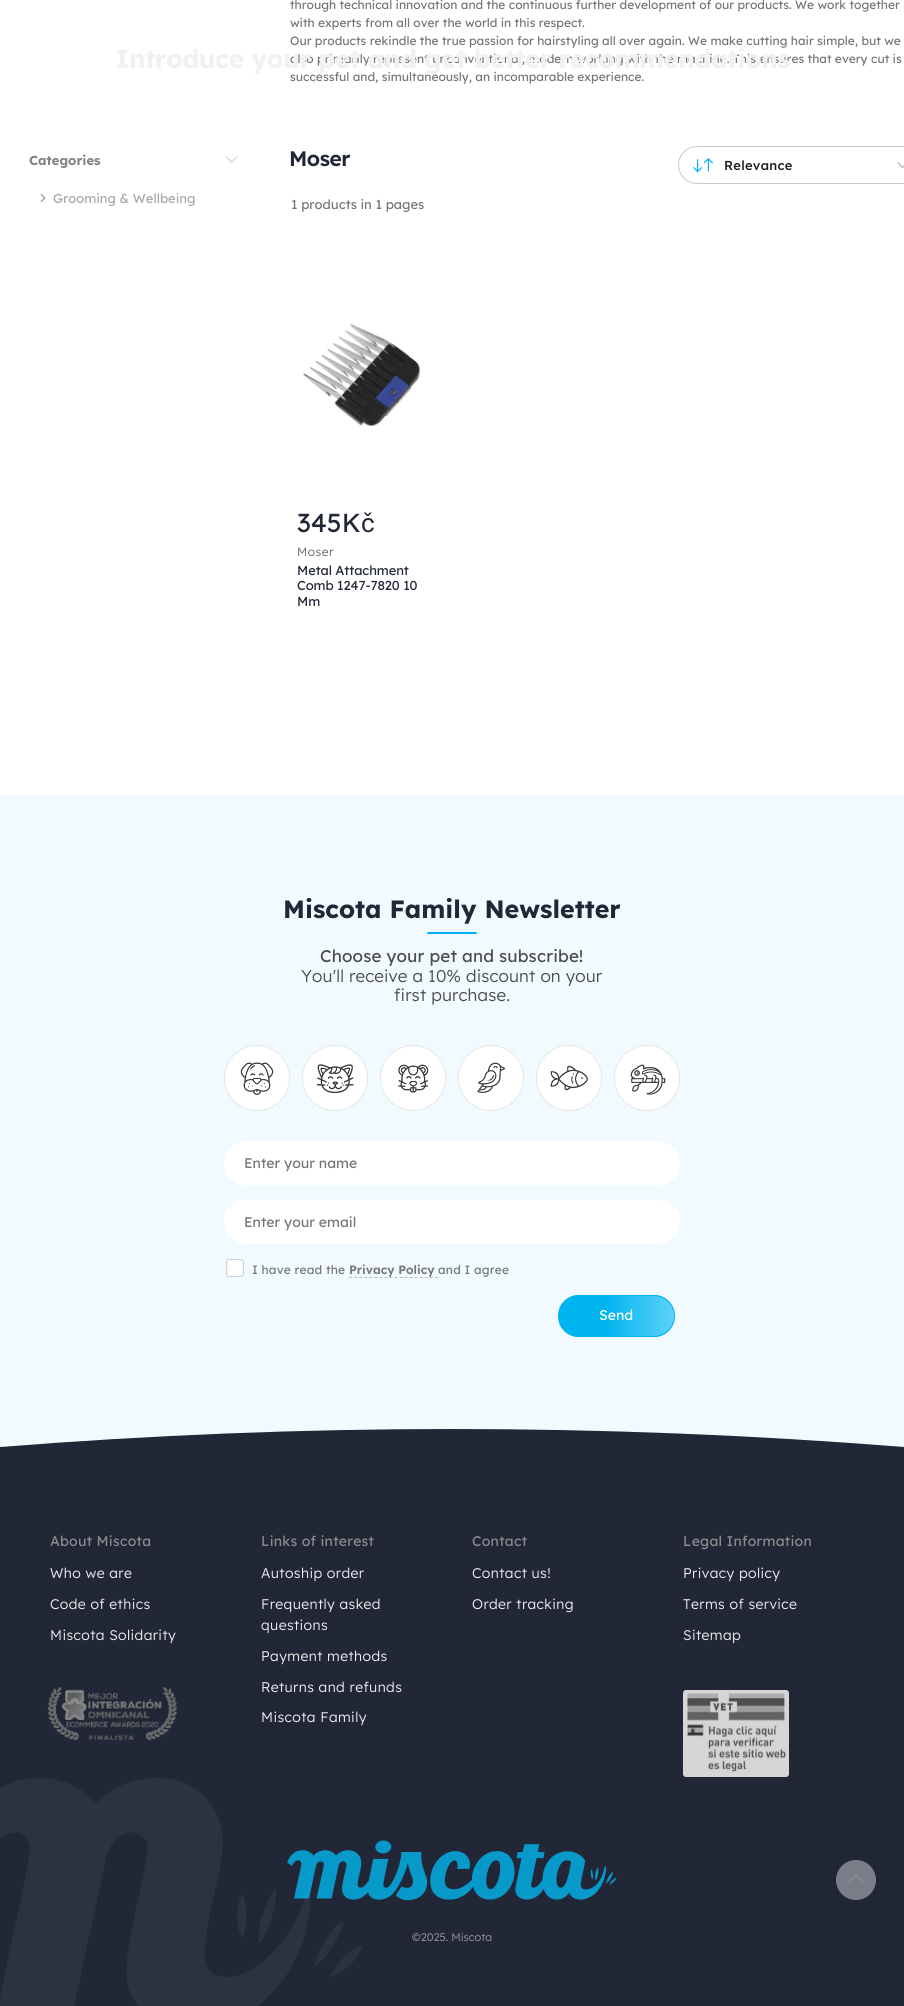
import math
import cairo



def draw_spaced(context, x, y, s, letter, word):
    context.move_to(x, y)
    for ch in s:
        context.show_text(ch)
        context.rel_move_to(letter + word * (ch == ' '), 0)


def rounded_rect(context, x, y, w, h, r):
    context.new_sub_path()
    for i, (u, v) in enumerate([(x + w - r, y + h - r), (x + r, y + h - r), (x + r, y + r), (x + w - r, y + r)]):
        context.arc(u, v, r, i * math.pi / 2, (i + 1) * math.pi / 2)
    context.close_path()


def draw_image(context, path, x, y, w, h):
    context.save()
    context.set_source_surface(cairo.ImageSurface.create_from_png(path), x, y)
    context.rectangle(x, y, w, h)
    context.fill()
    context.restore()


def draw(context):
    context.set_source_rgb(1, 1, 1)
    context.paint()
    context.set_source_rgb(224 / 255, 224 / 255, 224 / 255)
    context.new_path()
    context.move_to(238, 157)
    context.line_to(231.5, 163.5)
    context.line_to(230, 162)
    context.line_to(236.5, 156)
    context.close_path()
    context.fill()
    context.new_path()
    context.move_to(233, 162)
    context.line_to(231.5, 163.5)
    context.line_to(225, 157)
    context.line_to(226.5, 156)
    context.close_path()
    context.fill()
    draw_image(context, "images/1.png", 40, 193, 6, 10)
    rounded_rect(context, 678.5, 146.5, 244, 37, 18.5)
    context.set_source_rgb(200 / 255, 200 / 255, 200 / 255)
    context.set_line_width(1)
    context.stroke()
    draw_image(context, "images/2.png", 693, 158, 20, 15)
    context.set_source_rgb(153 / 255, 153 / 255, 153 / 255)
    context.new_path()
    context.move_to(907.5, 163)
    context.line_to(902.5, 168)
    context.line_to(902, 167.5)
    context.line_to(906.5, 162.5)
    context.close_path()
    context.fill()
    context.new_path()
    context.move_to(903, 167.5)
    context.line_to(902.5, 168)
    context.line_to(897.5, 163)
    context.line_to(898.5, 162.5)
    context.close_path()
    context.fill()
    draw_image(context, "images/3.png", 303, 323, 118, 104)
    context.set_source_rgb(240 / 255, 250 / 255, 1)
    context.rectangle(0, 795, 904, 652)
    context.fill()
    context.set_source_rgb(0, 181 / 255, 239 / 255)
    rounded_rect(context, 427, 932, 50, 2, 1)
    context.fill()
    context.set_source_rgb(1, 1, 1)
    context.arc(257, 1078, 32.5, 0, 2 * math.pi)
    context.fill_preserve()
    context.set_source_rgb(230 / 255, 230 / 255, 230 / 255)
    context.stroke()
    draw_image(context, "images/4.png", 240, 1062, 34, 33)
    context.set_source_rgb(1, 1, 1)
    context.arc(335, 1078, 32.5, 0, 2 * math.pi)
    context.fill_preserve()
    context.set_source_rgb(230 / 255, 230 / 255, 230 / 255)
    context.stroke()
    draw_image(context, "images/5.png", 316, 1064, 38, 30)
    context.set_source_rgb(1, 1, 1)
    context.arc(413, 1078, 32.5, 0, 2 * math.pi)
    context.fill_preserve()
    context.set_source_rgb(230 / 255, 230 / 255, 230 / 255)
    context.stroke()
    draw_image(context, "images/6.png", 398, 1064, 31, 29)
    context.set_source_rgb(1, 1, 1)
    context.arc(491, 1078, 32.5, 0, 2 * math.pi)
    context.fill_preserve()
    context.set_source_rgb(230 / 255, 230 / 255, 230 / 255)
    context.stroke()
    draw_image(context, "images/7.png", 477, 1062, 29, 31)
    context.set_source_rgb(1, 1, 1)
    context.arc(569, 1078, 32.5, 0, 2 * math.pi)
    context.fill_preserve()
    context.set_source_rgb(230 / 255, 230 / 255, 230 / 255)
    context.stroke()
    draw_image(context, "images/8.png", 550, 1065, 38, 26)
    context.set_source_rgb(1, 1, 1)
    context.arc(647, 1078, 32.5, 0, 2 * math.pi)
    context.fill_preserve()
    context.set_source_rgb(230 / 255, 230 / 255, 230 / 255)
    context.stroke()
    draw_image(context, "images/9.png", 630, 1064, 36, 31)
    context.set_source_rgb(1, 1, 1)
    rounded_rect(context, 224, 1141, 456, 44, 22)
    context.fill()
    rounded_rect(context, 224, 1200, 456, 44, 22)
    context.fill()
    rounded_rect(context, 226, 1259, 18, 18, 2)
    context.fill()
    rounded_rect(context, 227.5, 1260.5, 15, 15, 0.5)
    context.set_source_rgb(245 / 255, 245 / 255, 245 / 255)
    context.stroke()
    rounded_rect(context, 226.5, 1259.5, 17, 17, 1.5)
    context.set_source_rgb(210 / 255, 210 / 255, 210 / 255)
    context.stroke()
    context.new_path()
    context.move_to(349, 1277.5)
    context.line_to(438, 1277.5)
    context.set_source_rgb(189 / 255, 189 / 255, 189 / 255)
    context.set_dash([3, 2.06])
    context.stroke()
    context.save()
    rounded_rect(context, 558, 1295, 117, 42, 21)
    context.clip()
    gradient = cairo.LinearGradient(559, 1316, 720, 1316)
    gradient.add_color_stop_rgba(0.29, 0, 181 / 255, 239 / 255, 1)
    gradient.add_color_stop_rgba(1, 154 / 255, 230 / 255, 1, 1)
    context.set_source(gradient)
    context.rectangle(559, 1295, 115, 42)
    context.fill()
    context.restore()
    rounded_rect(context, 558.5, 1295.5, 116, 41, 20.5)
    context.set_source_rgb(0, 181 / 255, 239 / 255)
    context.set_dash([])
    context.stroke()
    context.set_source_rgb(33 / 255, 39 / 255, 55 / 255)
    context.set_fill_rule(cairo.FillRule.EVEN_ODD)
    context.new_path()
    context.move_to(904, 1447)
    context.line_to(904, 1455)
    context.line_to(0, 1455)
    context.line_to(0, 1447)
    context.curve_to(301, 1423, 603, 1423, 904, 1447)
    context.close_path()
    context.fill()
    context.rectangle(0, 1455, 904, 551)
    context.fill()
    draw_image(context, "images/10.png", 47, 1687, 131, 54)
    context.set_source_rgb(214 / 255, 214 / 255, 214 / 255)
    rounded_rect(context, 683, 1690, 106, 87, 3)
    context.fill()
    draw_image(context, "images/11.png", 687, 1693, 99, 80)
    draw_image(context, "images/13.png", 0, 1778, 362, 228)
    draw_image(context, "images/12.png", 287, 1840, 330, 61)
    context.set_source_rgba(1, 1, 1, 0.4)
    context.arc(856, 1880, 20, 0, 2 * math.pi)
    context.fill()
    draw_image(context, "images/14.png", 848, 1874, 16, 10)
    context.select_font_face("Lexend Deca")
    context.set_font_size(12)
    context.set_source_rgb(117 / 255, 117 / 255, 117 / 255)
    context.move_to(290, 9)
    context.show_text("through technical innovation and the continuous further development of our products. We work together")
    context.move_to(290, 27)
    context.show_text("with experts from all over the world in this respect.")
    context.move_to(290, 45)
    context.show_text("Our products rekindle the true passion for hairstyling all over again. We make cutting hair simple, but we")
    context.move_to(290, 63)
    context.show_text("also primarily represent unconventional, modern working with the machine. This ensures that every cut is")
    context.move_to(290, 81)
    context.show_text("successful and, simultaneously, an incomparable experience.")
    context.select_font_face("Lexend Deca", cairo.FontSlant.NORMAL, cairo.FontWeight.BOLD)
    context.set_font_size(13)
    context.set_source_rgb(132 / 255, 132 / 255, 132 / 255)
    context.move_to(29, 165)
    context.show_text("Categories")
    context.select_font_face("Lexend Deca")
    context.set_source_rgb(167 / 255, 167 / 255, 167 / 255)
    context.move_to(53, 203)
    context.show_text("Grooming & Wellbeing")
    context.select_font_face("Lexend Deca SemiBold")
    context.set_font_size(21)
    context.set_source_rgb(33 / 255, 39 / 255, 55 / 255)
    draw_spaced(context, 289, 166, "Moser", -0.5, 0)
    context.select_font_face("Lexend Deca Medium")
    context.set_font_size(13)
    context.set_source_rgb(33 / 255, 33 / 255, 33 / 255)
    draw_spaced(context, 724, 170, "Relevance", 0.25, 0)
    context.select_font_face("Lexend Deca")
    context.set_source_rgb(117 / 255, 117 / 255, 117 / 255)
    context.move_to(291, 209)
    context.show_text("1 products in 1 pages")
    context.set_font_size(26)
    context.set_source_rgb(33 / 255, 39 / 255, 55 / 255)
    context.move_to(297, 532)
    context.show_text("345K")
    context.select_font_face("Roboto")
    context.move_to(361, 532)
    context.show_text("č")
    context.select_font_face("Lexend Deca Light")
    context.set_font_size(12)
    context.set_source_rgb(100 / 255, 100 / 255, 100 / 255)
    draw_spaced(context, 297, 556, "Moser", 0.5, 0)
    context.select_font_face("Lexend Deca")
    context.set_font_size(13)
    context.set_source_rgb(33 / 255, 39 / 255, 55 / 255)
    draw_spaced(context, 297, 575, "Metal Attachment", -0.1, 0)
    draw_spaced(context, 297, 590, "Comb 1247-7820 10", -0.1, 0)
    draw_spaced(context, 297, 606, "Mm", -0.1, 0)
    context.select_font_face("Lexend Deca", cairo.FontSlant.NORMAL, cairo.FontWeight.BOLD)
    context.set_font_size(25)
    context.move_to(283, 918)
    context.show_text("Miscota Family Newsletter")
    context.select_font_face("Lexend Deca")
    context.set_font_size(17)
    context.set_source_rgb(75 / 255, 75 / 255, 75 / 255)
    draw_spaced(context, 320, 962, "Choose your pet and subscribe!", 0.15, 0)
    context.select_font_face("Lexend Deca Light")
    draw_spaced(context, 301, 982, "You'll receive a 10% discount on your", 0.15, 0)
    draw_spaced(context, 394, 1001, "first purchase.", 0.15, 0)
    context.select_font_face("Lexend Deca")
    context.set_font_size(14)
    context.set_source_rgb(117 / 255, 117 / 255, 117 / 255)
    context.move_to(244, 1168)
    context.show_text("Enter your name")
    context.move_to(244, 1227)
    context.show_text("Enter your email")
    context.set_font_size(12)
    draw_spaced(context, 252, 1274, "I have read the", 0.2, 0)
    context.select_font_face("Lexend Deca SemiBold")
    context.move_to(349, 1274)
    context.show_text("Privacy Policy")
    context.select_font_face("Lexend Deca")
    draw_spaced(context, 438, 1274, "and I agree", 0.2, 0)
    context.set_font_size(14)
    context.set_source_rgb(1, 1, 1)
    context.move_to(599, 1320)
    context.show_text("Send")
    context.set_source_rgb(140 / 255, 140 / 255, 140 / 255)
    draw_spaced(context, 50, 1546, "About Miscota", 0.25, 0)
    context.select_font_face("Lexend Deca Light")
    context.set_source_rgb(241 / 255, 241 / 255, 241 / 255)
    draw_spaced(context, 50, 1578, "Who we are", 0.4, 0)
    draw_spaced(context, 50, 1609, "Code of ethics", 0.4, 0)
    draw_spaced(context, 50, 1640, "Miscota Solidarity", 0.4, 0)
    context.select_font_face("Lexend Deca")
    context.set_source_rgb(140 / 255, 140 / 255, 140 / 255)
    draw_spaced(context, 261, 1546, "Links of interest", 0.25, 0)
    context.select_font_face("Lexend Deca Light")
    context.set_source_rgb(241 / 255, 241 / 255, 241 / 255)
    draw_spaced(context, 261, 1578, "Autoship order", 0.4, 0)
    draw_spaced(context, 261, 1609, "Frequently asked", 0.4, 0)
    draw_spaced(context, 261, 1630, "questions", 0.4, 0)
    draw_spaced(context, 261, 1661, "Payment methods", 0.4, 0)
    draw_spaced(context, 261, 1692, "Returns and refunds", 0.4, 0)
    draw_spaced(context, 261, 1722, "Miscota Family", 0.4, 0)
    context.select_font_face("Lexend Deca")
    context.set_source_rgb(140 / 255, 140 / 255, 140 / 255)
    draw_spaced(context, 472, 1546, "Contact", 0.25, 0)
    context.select_font_face("Lexend Deca Light")
    context.set_source_rgb(241 / 255, 241 / 255, 241 / 255)
    draw_spaced(context, 472, 1578, "Contact us!", 0.4, 0)
    draw_spaced(context, 472, 1609, "Order tracking", 0.4, 0)
    context.select_font_face("Lexend Deca")
    context.set_source_rgb(140 / 255, 140 / 255, 140 / 255)
    draw_spaced(context, 683, 1546, "Legal Information", 0.25, 0)
    context.select_font_face("Lexend Deca Light")
    context.set_source_rgb(241 / 255, 241 / 255, 241 / 255)
    draw_spaced(context, 683, 1578, "Privacy policy", 0.4, 0)
    draw_spaced(context, 683, 1609, "Terms of service", 0.4, 0)
    draw_spaced(context, 683, 1640, "Sitemap", 0.4, 0)
    context.set_font_size(11)
    context.set_source_rgb(156 / 255, 156 / 255, 156 / 255)
    context.move_to(412, 1941)
    context.show_text("©2025. Miscota")
    context.select_font_face("Lexend Deca", cairo.FontSlant.NORMAL, cairo.FontWeight.BOLD)
    context.set_font_size(26)
    context.set_source_rgb(241 / 255, 241 / 255, 241 / 255)
    draw_spaced(context, 115, 68, "Introduce your pet and get better recommendations", -0.5, 0)


surface = cairo.ImageSurface(cairo.Format.RGB24, 904, 2006)
context = cairo.Context(surface)
options = cairo.FontOptions()
options.set_hint_metrics(cairo.HintMetrics.OFF)
options.set_hint_style(cairo.HintStyle.NONE)
context.set_font_options(options)
context.set_miter_limit(4)
draw(context)
surface.write_to_png("out.png")
